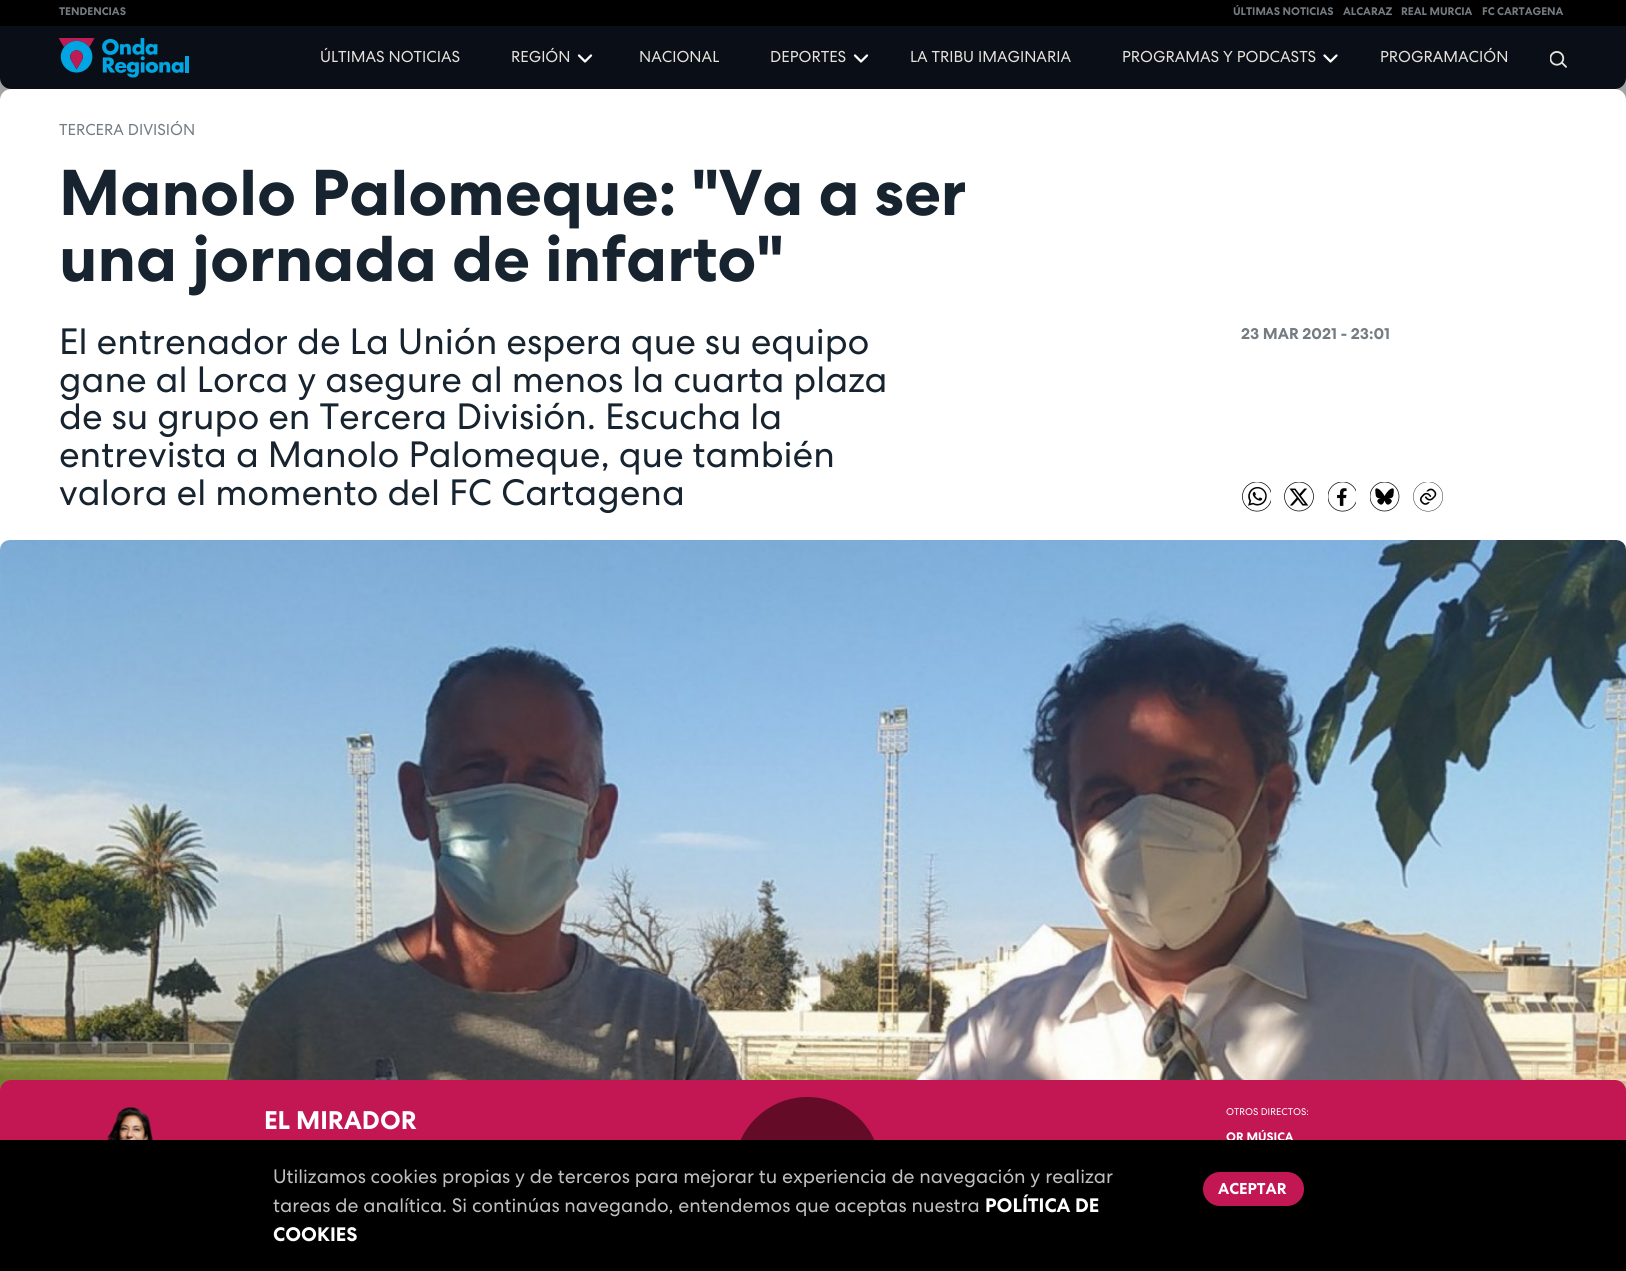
import math
import cairo



def rounded_rect(context, x, y, w, h, r):
    context.new_sub_path()
    for i, (u, v) in enumerate([(x + w - r, y + h - r), (x + r, y + h - r), (x + r, y + r), (x + w - r, y + r)]):
        context.arc(u, v, r, i * math.pi / 2, (i + 1) * math.pi / 2)
    context.close_path()


def draw_image(context, path, x, y, w, h):
    context.save()
    context.set_source_surface(cairo.ImageSurface.create_from_png(path), x, y)
    context.rectangle(x, y, w, h)
    context.fill()
    context.restore()


def draw(context):
    context.set_source_rgb(161 / 255, 163 / 255, 163 / 255)
    context.paint()
    context.set_source_rgb(0, 0, 0)
    context.rectangle(0, 0, 1626, 26)
    context.fill()
    context.set_source_rgb(10 / 255, 15 / 255, 23 / 255)
    context.new_path()
    context.move_to(0, 26)
    context.line_to(1626, 26)
    context.line_to(1626, 78)
    context.curve_to(1626, 84, 1621, 89, 1615, 89)
    context.line_to(11, 89)
    context.curve_to(5, 89, 0, 84, 0, 78)
    context.close_path()
    context.fill()
    draw_image(context, "images/1.png", 59, 38, 130, 40)
    draw_image(context, "images/2.png", 577, 54, 16, 9)
    draw_image(context, "images/2.png", 853, 54, 16, 9)
    draw_image(context, "images/3.png", 1323, 54, 15, 9)
    draw_image(context, "images/4.png", 1550, 51, 17, 17)
    context.set_source_rgb(1, 1, 1)
    context.new_path()
    context.move_to(11, 89)
    context.line_to(1615, 89)
    context.curve_to(1621, 89, 1626, 94, 1626, 100)
    context.line_to(1626, 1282)
    context.line_to(0, 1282)
    context.line_to(0, 100)
    context.curve_to(0, 94, 5, 89, 11, 89)
    context.close_path()
    context.fill()
    draw_image(context, "images/5.png", 1242, 482, 29, 30)
    draw_image(context, "images/6.png", 1284, 482, 30, 30)
    draw_image(context, "images/7.png", 1328, 482, 28, 30)
    draw_image(context, "images/8.png", 1370, 482, 30, 30)
    draw_image(context, "images/9.png", 1413, 482, 30, 30)
    draw_image(context, "images/10.png", 0, 540, 1626, 551)
    context.set_source_rgb(194 / 255, 23 / 255, 83 / 255)
    context.new_path()
    context.move_to(11, 1080)
    context.line_to(1615, 1080)
    context.curve_to(1621, 1080, 1626, 1085, 1626, 1091)
    context.line_to(1626, 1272)
    context.line_to(0, 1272)
    context.line_to(0, 1091)
    context.curve_to(0, 1085, 5, 1080, 11, 1080)
    context.close_path()
    context.fill()
    draw_image(context, "images/11.png", 107, 1107, 47, 33)
    context.set_source_rgb(100 / 255, 11 / 255, 40 / 255)
    context.arc(807.5, 1170.5, 73.5, 0, 2 * math.pi)
    context.fill()
    context.select_font_face("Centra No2", cairo.FontSlant.NORMAL, cairo.FontWeight.BOLD)
    context.set_font_size(11)
    context.set_source_rgb(116 / 255, 124 / 255, 130 / 255)
    context.move_to(59, 15)
    context.show_text("TENDENCIAS")
    context.move_to(1233, 15)
    context.show_text("ÚLTIMAS NOTICIAS")
    context.move_to(1343, 15)
    context.show_text("ALCARAZ")
    context.move_to(1401, 15)
    context.show_text("REAL MURCIA")
    context.move_to(1482, 15)
    context.show_text("FC CARTAGENA")
    context.select_font_face("Centra No2")
    context.set_font_size(15.75)
    context.set_source_rgb(230 / 255, 226 / 255, 220 / 255)
    context.move_to(320, 62)
    context.show_text("ÚLTIMAS NOTICIAS")
    context.move_to(511, 62)
    context.show_text("REGIÓN")
    context.move_to(639, 62)
    context.show_text("NACIONAL")
    context.move_to(770, 62)
    context.show_text("DEPORTES")
    context.move_to(910, 62)
    context.show_text("LA TRIBU IMAGINARIA")
    context.move_to(1122, 62)
    context.show_text("PROGRAMAS Y PODCASTS")
    context.move_to(1380, 62)
    context.show_text("PROGRAMACIÓN")
    context.set_source_rgb(116 / 255, 124 / 255, 130 / 255)
    context.move_to(59, 135)
    context.show_text("TERCERA DIVISIÓN")
    context.select_font_face("Centra No2", cairo.FontSlant.NORMAL, cairo.FontWeight.BOLD)
    context.set_font_size(64.6)
    context.set_source_rgb(23 / 255, 36 / 255, 47 / 255)
    context.move_to(59, 215)
    context.show_text("Manolo Palomeque: \"Va a ser")
    context.move_to(59, 281)
    context.show_text("una jornada de infarto\"")
    context.select_font_face("Centra No2")
    context.set_font_size(36.6)
    context.move_to(59, 354)
    context.show_text("El entrenador de La Unión espera que su equipo")
    context.move_to(59, 392)
    context.show_text("gane al Lorca y asegure al menos la cuarta plaza")
    context.move_to(59, 429)
    context.show_text("de su grupo en Tercera División. Escucha la")
    context.move_to(59, 467)
    context.show_text("entrevista a Manolo Palomeque, que también")
    context.move_to(59, 505)
    context.show_text("valora el momento del FC Cartagena")
    context.select_font_face("Centra No2", cairo.FontSlant.NORMAL, cairo.FontWeight.BOLD)
    context.set_font_size(15.75)
    context.set_source_rgb(116 / 255, 124 / 255, 130 / 255)
    context.move_to(1241, 339)
    context.show_text("23 MAR 2021 - 23:01")
    context.set_font_size(25.5)
    context.set_source_rgb(1, 1, 1)
    context.move_to(264, 1129)
    context.show_text("EL MIRADOR")
    context.select_font_face("Centra No2")
    context.set_font_size(9.75)
    context.move_to(1226, 1115)
    context.show_text("OTROS DIRECTOS:")
    context.select_font_face("Centra No2", cairo.FontSlant.NORMAL, cairo.FontWeight.BOLD)
    context.set_font_size(12.25)
    context.move_to(1226, 1141)
    context.show_text("OR MÚSICA")
    context.set_source_rgb(0, 0, 0)
    context.rectangle(0, 1140, 1626, 131)
    context.fill()
    context.select_font_face("Centra No2")
    context.set_font_size(19.5)
    context.set_source_rgb(191 / 255, 191 / 255, 191 / 255)
    context.move_to(273, 1183)
    context.show_text("Utilizamos cookies propias y de terceros para mejorar tu experiencia de navegación y realizar")
    context.move_to(273, 1212)
    context.show_text("tareas de analítica. Si continúas navegando, entendemos que aceptas nuestra")
    context.select_font_face("Centra No2", cairo.FontSlant.NORMAL, cairo.FontWeight.BOLD)
    context.set_source_rgb(1, 1, 1)
    context.move_to(985, 1212)
    context.show_text("POLÍTICA DE")
    context.move_to(273, 1241)
    context.show_text("COOKIES")
    context.set_source_rgb(194 / 255, 23 / 255, 83 / 255)
    rounded_rect(context, 1203, 1172, 101, 34, 17)
    context.fill()
    context.set_font_size(15.75)
    context.set_source_rgb(1, 1, 1)
    context.move_to(1218, 1194)
    context.show_text("ACEPTAR")


surface = cairo.ImageSurface(cairo.Format.RGB24, 1626, 1271)
context = cairo.Context(surface)
options = cairo.FontOptions()
options.set_hint_metrics(cairo.HintMetrics.OFF)
options.set_hint_style(cairo.HintStyle.NONE)
context.set_font_options(options)
context.set_miter_limit(4)
draw(context)
surface.write_to_png("out.png")
